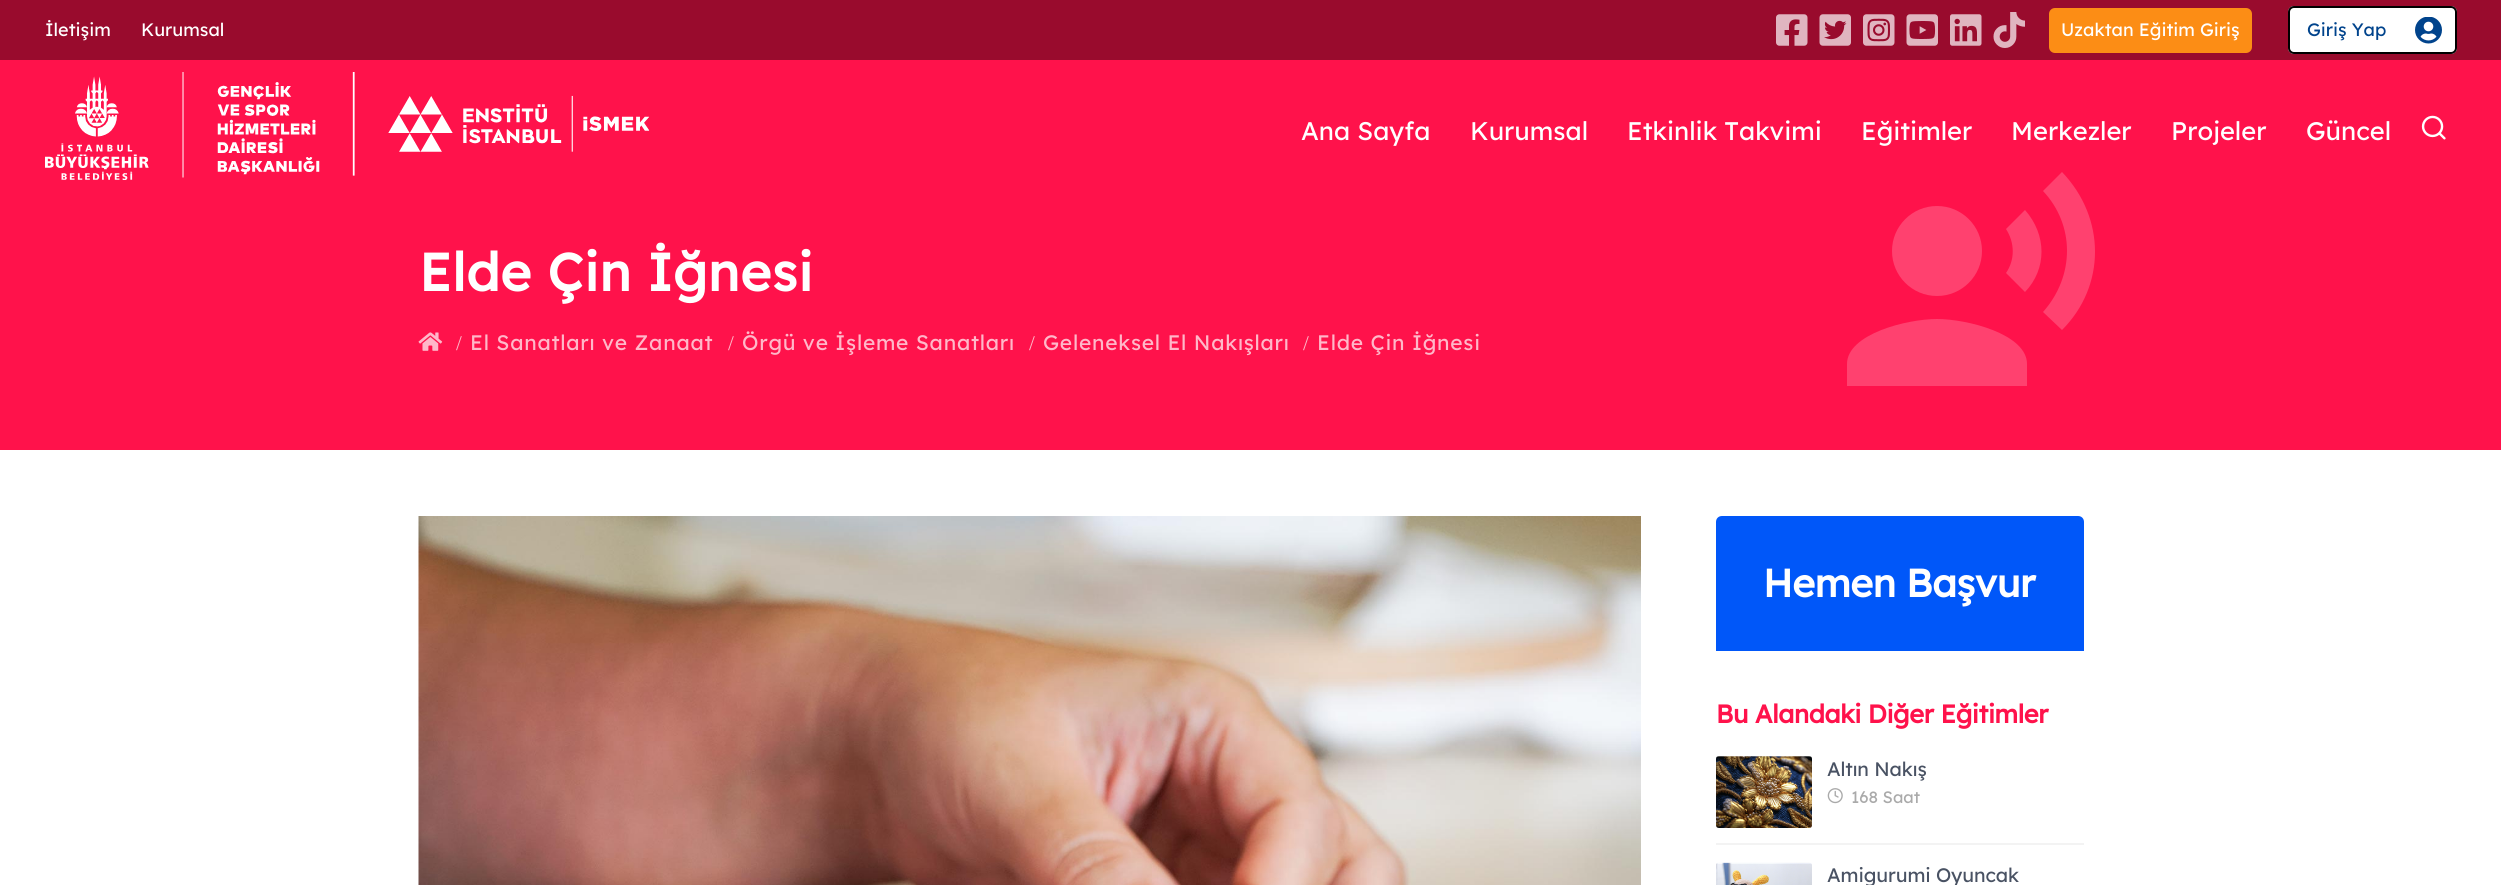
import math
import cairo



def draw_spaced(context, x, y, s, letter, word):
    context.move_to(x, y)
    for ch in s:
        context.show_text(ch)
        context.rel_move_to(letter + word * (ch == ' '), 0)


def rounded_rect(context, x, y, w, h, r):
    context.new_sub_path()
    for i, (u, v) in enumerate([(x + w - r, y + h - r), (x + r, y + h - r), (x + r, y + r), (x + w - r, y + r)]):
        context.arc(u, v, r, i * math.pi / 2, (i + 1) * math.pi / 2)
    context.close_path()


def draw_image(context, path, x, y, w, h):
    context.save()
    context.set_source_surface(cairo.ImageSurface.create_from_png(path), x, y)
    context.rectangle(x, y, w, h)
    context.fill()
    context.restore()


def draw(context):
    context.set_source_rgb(1, 1, 1)
    context.paint()
    context.set_source_rgb(153 / 255, 11 / 255, 45 / 255)
    context.rectangle(0, 0, 2501, 60)
    context.fill()
    draw_image(context, "images/1.png", 1776, 14, 32, 32)
    draw_image(context, "images/2.png", 1819, 14, 32, 32)
    draw_image(context, "images/3.png", 1863, 14, 32, 32)
    draw_image(context, "images/4.png", 1906, 14, 32, 32)
    draw_image(context, "images/5.png", 1950, 14, 32, 32)
    draw_image(context, "images/6.png", 1993, 12, 32, 36)
    context.set_source_rgb(252 / 255, 141 / 255, 21 / 255)
    rounded_rect(context, 2049, 8, 203, 45, 6)
    context.fill()
    context.set_source_rgb(1, 1, 1)
    rounded_rect(context, 2288, 6, 169, 48, 6)
    context.fill()
    draw_image(context, "images/7.png", 2415, 17, 27, 27)
    rounded_rect(context, 2289, 7, 167, 46, 5)
    context.set_source_rgb(0, 0, 0)
    context.stroke()
    context.set_source_rgb(1, 18 / 255, 75 / 255)
    context.rectangle(0, 60, 2501, 390)
    context.fill()
    draw_image(context, "images/8.png", 45, 72, 605, 108)
    draw_image(context, "images/9.png", 2421, 115, 25, 25)
    context.set_source_rgb(1, 65 / 255, 111 / 255)
    context.arc(1937, 251, 45, 0, 2 * math.pi)
    context.fill()
    context.new_path()
    context.move_to(1937, 319)
    context.curve_to(1907, 319, 1847, 334, 1847, 364)
    context.line_to(1847, 386)
    context.line_to(2027, 386)
    context.line_to(2027, 364)
    context.curve_to(2027, 334, 1967, 319, 1937, 319)
    context.close_path()
    context.move_to(2025, 210)
    context.line_to(2006, 229)
    context.curve_to(2015, 243, 2015, 260, 2006, 273)
    context.line_to(2025, 292)
    context.curve_to(2047, 269, 2047, 235, 2025, 210)
    context.close_path()
    context.move_to(2062, 172)
    context.line_to(2043, 191)
    context.curve_to(2075, 225, 2075, 276, 2043, 312)
    context.line_to(2062, 330)
    context.curve_to(2106, 286, 2106, 218, 2062, 172)
    context.close_path()
    context.fill()
    draw_image(context, "images/10.png", 418, 332, 25, 19)
    draw_image(context, "images/11.png", 418, 516, 1223, 369)
    context.set_source_rgb(0, 87 / 255, 249 / 255)
    context.new_path()
    context.move_to(1722, 516)
    context.line_to(2078, 516)
    context.curve_to(2081.5, 516, 2084, 518.5, 2084, 522)
    context.line_to(2084, 651)
    context.line_to(1716, 651)
    context.line_to(1716, 522)
    context.curve_to(1716, 518.5, 1718.5, 516, 1722, 516)
    context.close_path()
    context.fill()
    context.set_source_rgb(243 / 255, 243 / 255, 243 / 255)
    context.rectangle(1716, 843, 368, 2)
    context.fill()
    draw_image(context, "images/12.png", 1716, 756, 96, 72)
    draw_image(context, "images/13.png", 1827, 788, 16, 16)
    draw_image(context, "images/14.png", 1716, 862, 96, 23)
    context.select_font_face("Lexend")
    context.set_font_size(18)
    context.set_source_rgb(1, 1, 1)
    context.move_to(45, 36)
    context.show_text("İletişim")
    context.move_to(141, 36)
    context.show_text("Kurumsal")
    context.move_to(2061, 36)
    context.show_text("Uzaktan Eğitim Giriş")
    context.set_source_rgb(0, 67 / 255, 140 / 255)
    context.move_to(2307, 36)
    context.show_text("Giriş Yap")
    context.set_font_size(25.5)
    context.set_source_rgb(1, 1, 1)
    context.move_to(1301, 140)
    context.show_text("Ana Sayfa")
    context.move_to(1470, 140)
    context.show_text("Kurumsal")
    context.move_to(1627, 140)
    context.show_text("Etkinlik Takvimi")
    context.move_to(1861, 140)
    context.show_text("Eğitimler")
    context.move_to(2011, 140)
    context.show_text("Merkezler")
    context.move_to(2171, 140)
    context.show_text("Projeler")
    context.move_to(2306, 140)
    context.show_text("Güncel")
    context.select_font_face("Lexend", cairo.FontSlant.NORMAL, cairo.FontWeight.BOLD)
    context.set_font_size(52.75)
    draw_spaced(context, 419, 291, "Elde Çin İğnesi", 0.75, 0)
    context.select_font_face("Liberation Serif")
    context.set_font_size(21)
    context.set_source_rgb(1, 184 / 255, 201 / 255)
    draw_spaced(context, 456, 350, "/", 0.75, 0)
    context.select_font_face("Lexend")
    draw_spaced(context, 470, 350, "El Sanatları ve Zanaat", 0.75, 0)
    context.select_font_face("Liberation Serif")
    draw_spaced(context, 728, 350, "/", 0.75, 0)
    context.select_font_face("Lexend")
    draw_spaced(context, 742, 350, "Örgü ve İşleme Sanatları", 0.75, 0)
    context.select_font_face("Liberation Serif")
    draw_spaced(context, 1029, 350, "/", 0.75, 0)
    context.select_font_face("Lexend")
    draw_spaced(context, 1043, 350, "Geleneksel El Nakışları", 0.75, 0)
    context.select_font_face("Liberation Serif")
    draw_spaced(context, 1303, 350, "/", 0.75, 0)
    context.select_font_face("Lexend")
    draw_spaced(context, 1317, 350, "Elde Çin İğnesi", 0.75, 0)
    context.select_font_face("Lexend", cairo.FontSlant.NORMAL, cairo.FontWeight.BOLD)
    context.set_font_size(39)
    context.set_source_rgb(1, 1, 1)
    draw_spaced(context, 1763, 597, "Hemen Başvur", -0.4, 0)
    context.set_font_size(25.5)
    context.set_source_rgb(1, 18 / 255, 75 / 255)
    draw_spaced(context, 1716, 723, "Bu Alandaki Diğer Eğitimler", -0.4, 0)
    context.select_font_face("Lexend")
    context.set_font_size(19.5)
    context.set_source_rgb(73 / 255, 82 / 255, 99 / 255)
    draw_spaced(context, 1827, 776, "Altın Nakış", -0.1, 0)
    context.set_font_size(16.5)
    context.set_source_rgb(170 / 255, 170 / 255, 170 / 255)
    context.move_to(1851, 803)
    context.show_text("168 Saat")
    context.set_font_size(19.5)
    context.set_source_rgb(73 / 255, 82 / 255, 99 / 255)
    draw_spaced(context, 1827, 882, "Amigurumi Oyuncak", -0.1, 0)


surface = cairo.ImageSurface(cairo.Format.RGB24, 2501, 885)
context = cairo.Context(surface)
options = cairo.FontOptions()
options.set_hint_metrics(cairo.HintMetrics.OFF)
options.set_hint_style(cairo.HintStyle.NONE)
context.set_font_options(options)
context.set_miter_limit(4)
draw(context)
surface.write_to_png("out.png")
